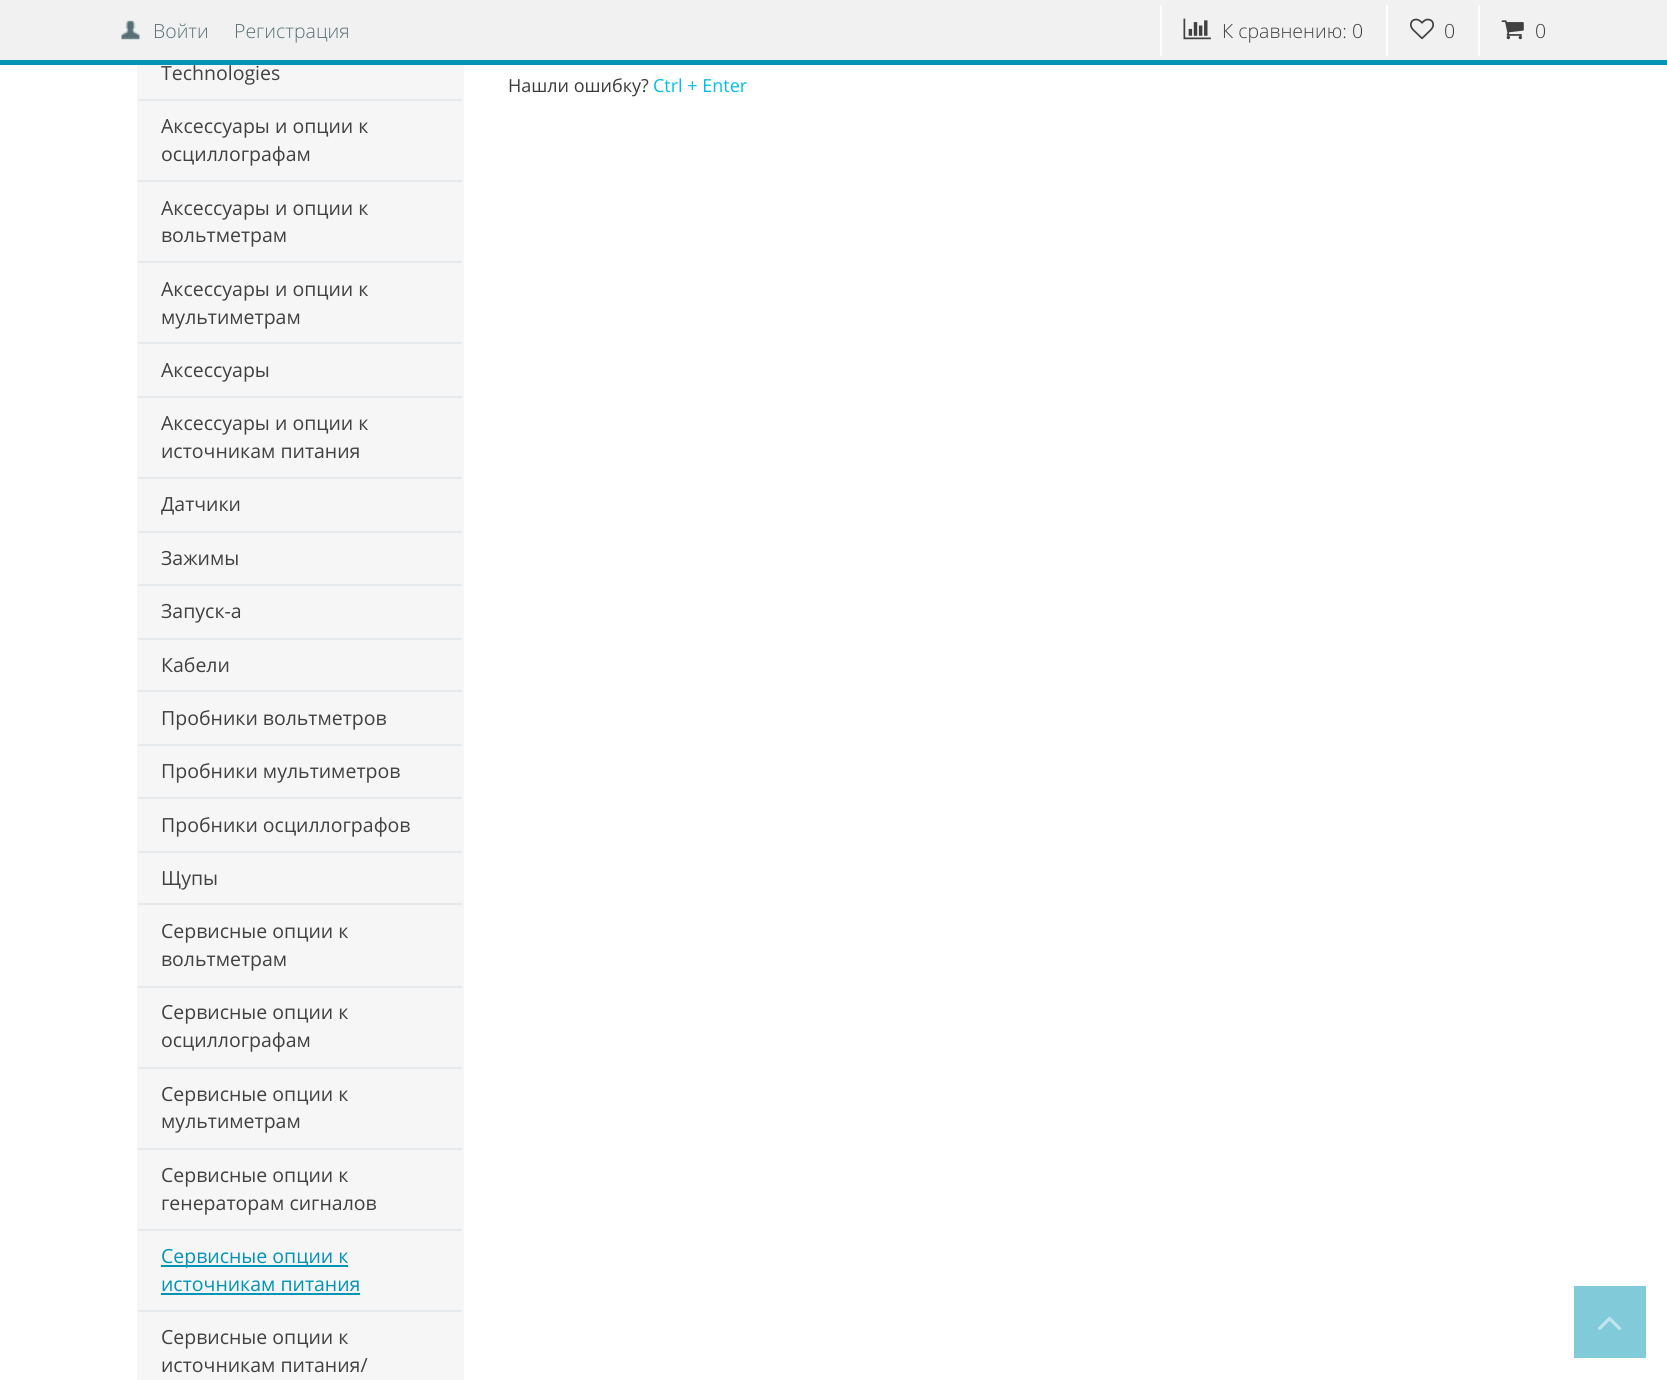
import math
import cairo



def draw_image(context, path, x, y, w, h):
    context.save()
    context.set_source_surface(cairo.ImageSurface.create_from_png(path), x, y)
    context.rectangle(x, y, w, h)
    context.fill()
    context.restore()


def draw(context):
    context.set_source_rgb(1, 1, 1)
    context.paint()
    context.rectangle(138, -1, 325, 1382)
    context.set_source_rgb(246 / 255, 246 / 255, 246 / 255)
    context.stroke()
    context.set_source_rgb(241 / 255, 241 / 255, 241 / 255)
    context.rectangle(0, 0, 1667, 60)
    context.fill()
    context.set_source_rgb(0, 148 / 255, 181 / 255)
    context.rectangle(0, 60, 1667, 5)
    context.fill()
    draw_image(context, "images/1.png", 121, 20, 19, 20)
    context.set_source_rgb(1, 1, 1)
    context.rectangle(1160, 5, 2, 51)
    context.fill()
    draw_image(context, "images/2.png", 1183, 18, 28, 22)
    context.rectangle(1386, 5, 2, 51)
    context.fill()
    draw_image(context, "images/3.png", 1410, 18, 24, 22)
    context.rectangle(1478, 5, 2, 51)
    context.fill()
    draw_image(context, "images/4.png", 1501, 20, 23, 20)
    context.set_source_rgb(246 / 255, 246 / 255, 247 / 255)
    context.rectangle(139, 65, 323, 1315)
    context.fill()
    context.set_source_rgb(230 / 255, 234 / 255, 237 / 255)
    context.rectangle(138, 99, 324, 2)
    context.fill()
    context.rectangle(138, 180, 324, 2)
    context.fill()
    context.rectangle(138, 261, 324, 2)
    context.fill()
    context.rectangle(138, 342, 324, 2)
    context.fill()
    context.rectangle(138, 396, 324, 2)
    context.fill()
    context.rectangle(138, 477, 324, 2)
    context.fill()
    context.rectangle(138, 531, 324, 2)
    context.fill()
    context.rectangle(138, 584, 324, 2)
    context.fill()
    context.rectangle(138, 638, 324, 2)
    context.fill()
    context.rectangle(138, 690, 324, 2)
    context.fill()
    context.rectangle(138, 744, 324, 2)
    context.fill()
    context.rectangle(138, 797, 324, 2)
    context.fill()
    context.rectangle(138, 851, 324, 2)
    context.fill()
    context.rectangle(138, 903, 324, 2)
    context.fill()
    context.rectangle(138, 986, 324, 2)
    context.fill()
    context.rectangle(138, 1067, 324, 2)
    context.fill()
    context.rectangle(138, 1148, 324, 2)
    context.fill()
    context.rectangle(138, 1229, 324, 2)
    context.fill()
    context.set_source_rgb(0, 148 / 255, 181 / 255)
    context.rectangle(161, 1265, 187, 2)
    context.fill()
    context.rectangle(161, 1293, 199, 2)
    context.fill()
    context.set_source_rgb(230 / 255, 234 / 255, 237 / 255)
    context.rectangle(138, 1310, 324, 2)
    context.fill()
    context.set_source_rgb(128 / 255, 202 / 255, 218 / 255)
    context.rectangle(1574, 1286, 72, 72)
    context.fill()
    draw_image(context, "images/5.png", 1597, 1316, 25, 15)
    context.select_font_face("Open Sans Light")
    context.set_font_size(19.5)
    context.set_source_rgb(87 / 255, 110 / 255, 117 / 255)
    context.move_to(153, 38)
    context.show_text("Войти")
    context.move_to(234, 38)
    context.show_text("Регистрация")
    context.set_source_rgb(65 / 255, 65 / 255, 65 / 255)
    context.move_to(1222, 38)
    context.show_text("К сравнению: 0")
    context.move_to(1444, 38)
    context.show_text("0")
    context.move_to(1535, 38)
    context.show_text("0")
    context.select_font_face("Open Sans")
    context.move_to(161, 80)
    context.show_text("Technologies")
    context.move_to(161, 133)
    context.show_text("Аксессуары и опции к")
    context.move_to(161, 161)
    context.show_text("осциллографам")
    context.move_to(161, 215)
    context.show_text("Аксессуары и опции к")
    context.move_to(161, 242)
    context.show_text("вольтметрам")
    context.move_to(161, 296)
    context.show_text("Аксессуары и опции к")
    context.move_to(161, 324)
    context.show_text("мультиметрам")
    context.move_to(161, 377)
    context.show_text("Аксессуары")
    context.move_to(161, 430)
    context.show_text("Аксессуары и опции к")
    context.move_to(161, 458)
    context.show_text("источникам питания")
    context.move_to(161, 511)
    context.show_text("Датчики")
    context.move_to(161, 565)
    context.show_text("Зажимы")
    context.move_to(161, 618)
    context.show_text("Запуск-a")
    context.move_to(161, 672)
    context.show_text("Кабели")
    context.move_to(161, 725)
    context.show_text("Пробники вольтметров")
    context.move_to(161, 778)
    context.show_text("Пробники мультиметров")
    context.move_to(161, 832)
    context.show_text("Пробники осциллографов")
    context.move_to(161, 885)
    context.show_text("Щупы")
    context.move_to(161, 938)
    context.show_text("Сервисные опции к")
    context.move_to(161, 966)
    context.show_text("вольтметрам")
    context.move_to(161, 1019)
    context.show_text("Сервисные опции к")
    context.move_to(161, 1047)
    context.show_text("осциллографам")
    context.move_to(161, 1101)
    context.show_text("Сервисные опции к")
    context.move_to(161, 1128)
    context.show_text("мультиметрам")
    context.move_to(161, 1182)
    context.show_text("Сервисные опции к")
    context.move_to(161, 1210)
    context.show_text("генераторам сигналов")
    context.set_source_rgb(0, 148 / 255, 181 / 255)
    context.move_to(161, 1263)
    context.show_text("Сервисные опции к")
    context.move_to(161, 1291)
    context.show_text("источникам питания")
    context.set_source_rgb(65 / 255, 65 / 255, 65 / 255)
    context.move_to(161, 1344)
    context.show_text("Сервисные опции к")
    context.move_to(161, 1372)
    context.show_text("источникам питания/")
    context.set_font_size(18)
    context.set_source_rgb(59 / 255, 59 / 255, 59 / 255)
    context.move_to(508, 92)
    context.show_text("Нашли ошибку?")
    context.set_source_rgb(0, 190 / 255, 232 / 255)
    context.move_to(653, 92)
    context.show_text("Ctrl + Enter")


surface = cairo.ImageSurface(cairo.Format.RGB24, 1667, 1380)
context = cairo.Context(surface)
options = cairo.FontOptions()
options.set_hint_metrics(cairo.HintMetrics.OFF)
options.set_hint_style(cairo.HintStyle.NONE)
context.set_font_options(options)
context.set_miter_limit(4)
draw(context)
surface.write_to_png("out.png")
